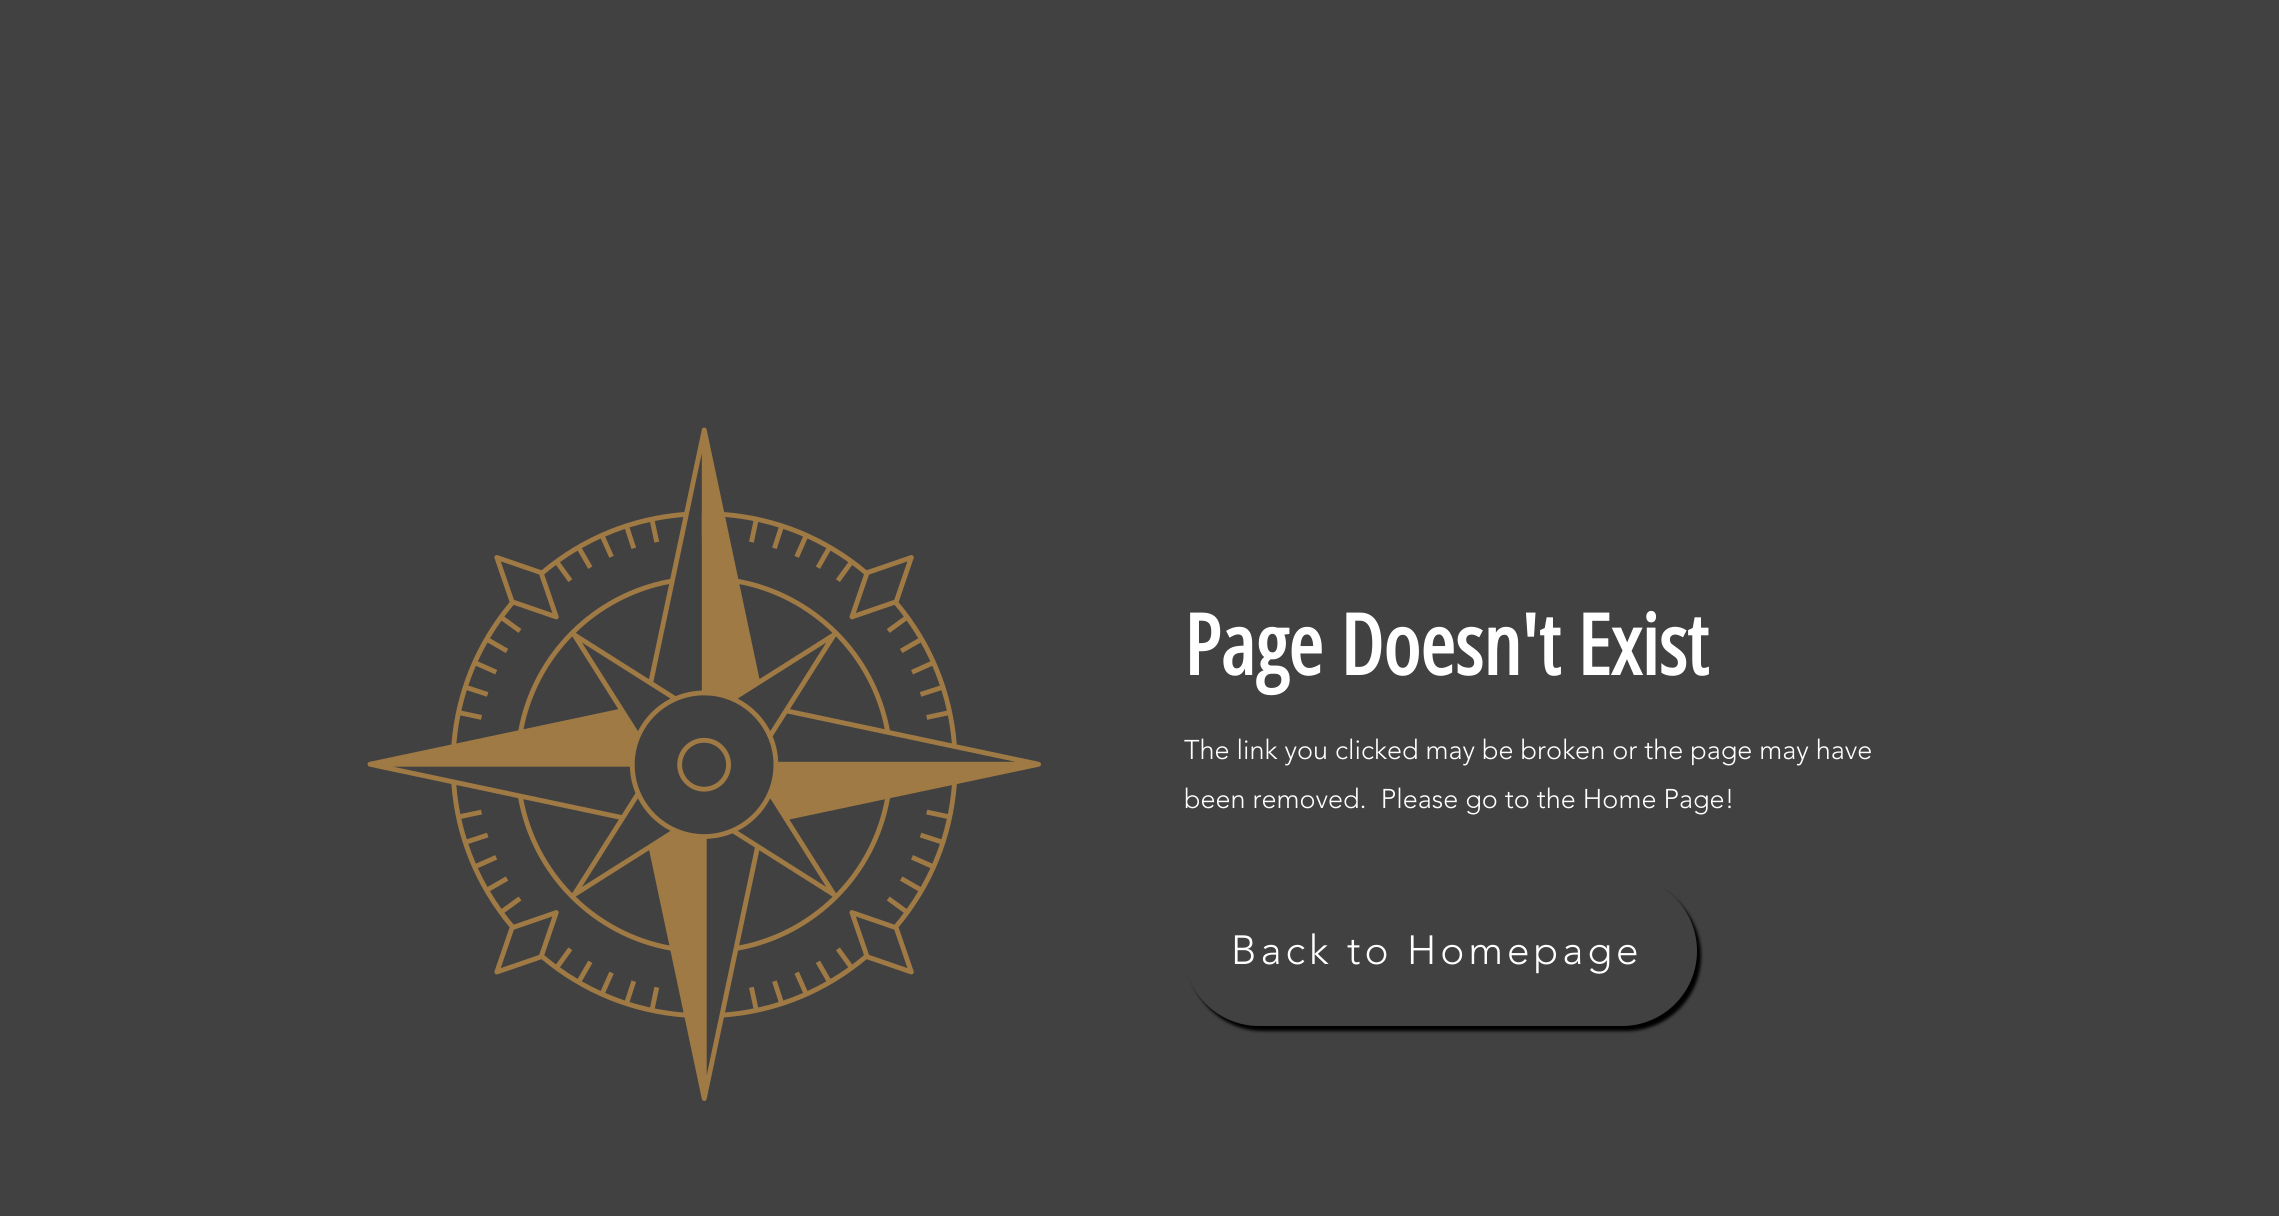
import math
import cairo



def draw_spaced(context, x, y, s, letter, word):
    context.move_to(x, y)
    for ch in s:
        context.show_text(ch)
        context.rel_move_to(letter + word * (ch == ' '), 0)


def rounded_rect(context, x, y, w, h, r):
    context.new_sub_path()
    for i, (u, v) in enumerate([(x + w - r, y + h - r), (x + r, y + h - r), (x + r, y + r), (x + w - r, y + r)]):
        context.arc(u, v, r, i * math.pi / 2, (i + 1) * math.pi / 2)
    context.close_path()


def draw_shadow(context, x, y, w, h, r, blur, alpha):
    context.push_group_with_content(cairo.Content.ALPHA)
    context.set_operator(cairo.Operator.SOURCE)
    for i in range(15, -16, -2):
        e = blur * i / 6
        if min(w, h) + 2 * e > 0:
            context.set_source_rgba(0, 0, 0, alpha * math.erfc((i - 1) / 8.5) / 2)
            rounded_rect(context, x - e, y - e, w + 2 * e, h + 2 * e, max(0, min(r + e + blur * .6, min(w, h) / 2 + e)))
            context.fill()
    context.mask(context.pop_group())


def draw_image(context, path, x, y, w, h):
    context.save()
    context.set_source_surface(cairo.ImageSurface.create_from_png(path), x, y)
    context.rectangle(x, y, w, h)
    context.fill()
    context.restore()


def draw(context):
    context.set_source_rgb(65 / 255, 65 / 255, 65 / 255)
    context.paint()
    draw_image(context, "images/1.png", 367, 427, 674, 674)
    context.set_source_rgb(0, 0, 0)
    draw_shadow(context, 1188, 881, 513, 150, 75, 1.5, 1)
    context.set_source_rgb(65 / 255, 65 / 255, 65 / 255)
    rounded_rect(context, 1184, 876, 513, 150, 75)
    context.fill()
    context.select_font_face("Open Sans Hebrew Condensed", cairo.FontSlant.NORMAL, cairo.FontWeight.BOLD)
    context.set_font_size(84)
    context.set_source_rgb(1, 1, 1)
    context.move_to(1184, 675)
    context.show_text("Page Doesn't Exist")
    context.select_font_face("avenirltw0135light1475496 Light")
    context.set_font_size(27)
    context.move_to(1184, 759)
    context.show_text("The link you clicked may be broken or the page may have")
    context.move_to(1184, 808)
    context.show_text("been removed.  Please go to the Home Page!")
    context.set_font_size(40.5)
    draw_spaced(context, 1231, 964, "Back to Homepage", 4, 0)


surface = cairo.ImageSurface(cairo.Format.RGB24, 2279, 1216)
context = cairo.Context(surface)
options = cairo.FontOptions()
options.set_hint_metrics(cairo.HintMetrics.OFF)
options.set_hint_style(cairo.HintStyle.NONE)
context.set_font_options(options)
context.set_miter_limit(4)
draw(context)
surface.write_to_png("out.png")
